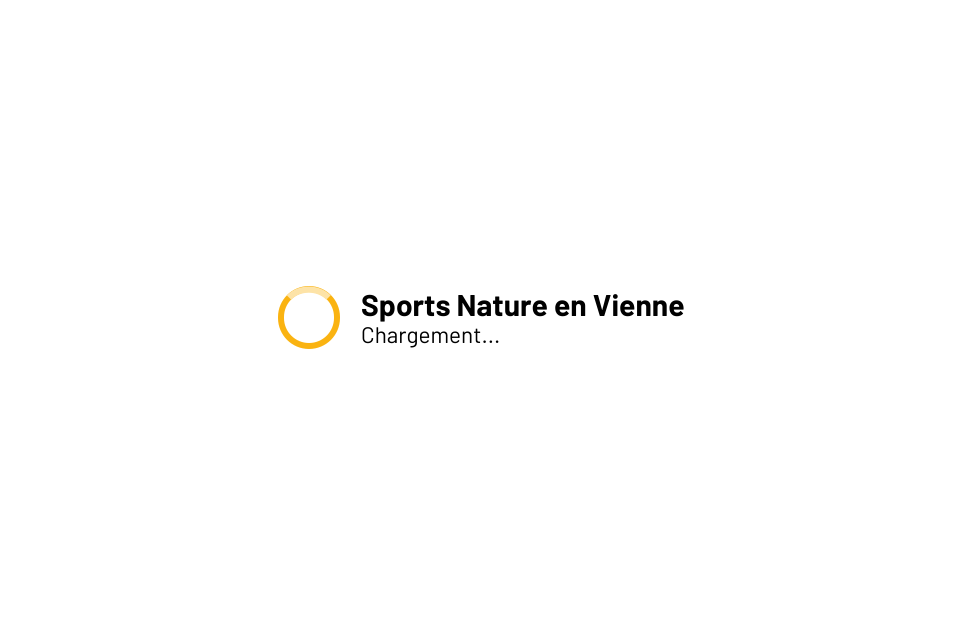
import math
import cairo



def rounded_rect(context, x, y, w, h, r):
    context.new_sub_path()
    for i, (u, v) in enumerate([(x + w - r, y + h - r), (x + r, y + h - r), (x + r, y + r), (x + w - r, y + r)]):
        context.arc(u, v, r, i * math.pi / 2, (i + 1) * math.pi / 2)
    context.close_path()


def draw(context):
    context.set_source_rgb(1, 1, 1)
    context.paint()
    rounded_rect(context, 281, 289, 56, 57, 28)
    context.set_source_rgb(250 / 255, 179 / 255, 17 / 255)
    context.set_line_width(6)
    context.stroke()
    context.new_path()
    context.move_to(289, 297.5)
    context.curve_to(299.5, 287, 318, 287, 328.5, 297.5)
    context.set_source_rgb(253 / 255, 227 / 255, 167 / 255)
    context.set_line_width(6.2)
    context.stroke()
    context.select_font_face("Barlow", cairo.FontSlant.NORMAL, cairo.FontWeight.BOLD)
    context.set_font_size(30)
    context.set_source_rgb(0, 0, 0)
    context.move_to(361, 316)
    context.show_text("Sports Nature en Vienne")
    context.select_font_face("Barlow")
    context.set_font_size(22.5)
    context.move_to(361, 343)
    context.show_text("Chargement...")


surface = cairo.ImageSurface(cairo.Format.RGB24, 962, 634)
context = cairo.Context(surface)
options = cairo.FontOptions()
options.set_hint_metrics(cairo.HintMetrics.OFF)
options.set_hint_style(cairo.HintStyle.NONE)
context.set_font_options(options)
context.set_miter_limit(4)
draw(context)
surface.write_to_png("out.png")
